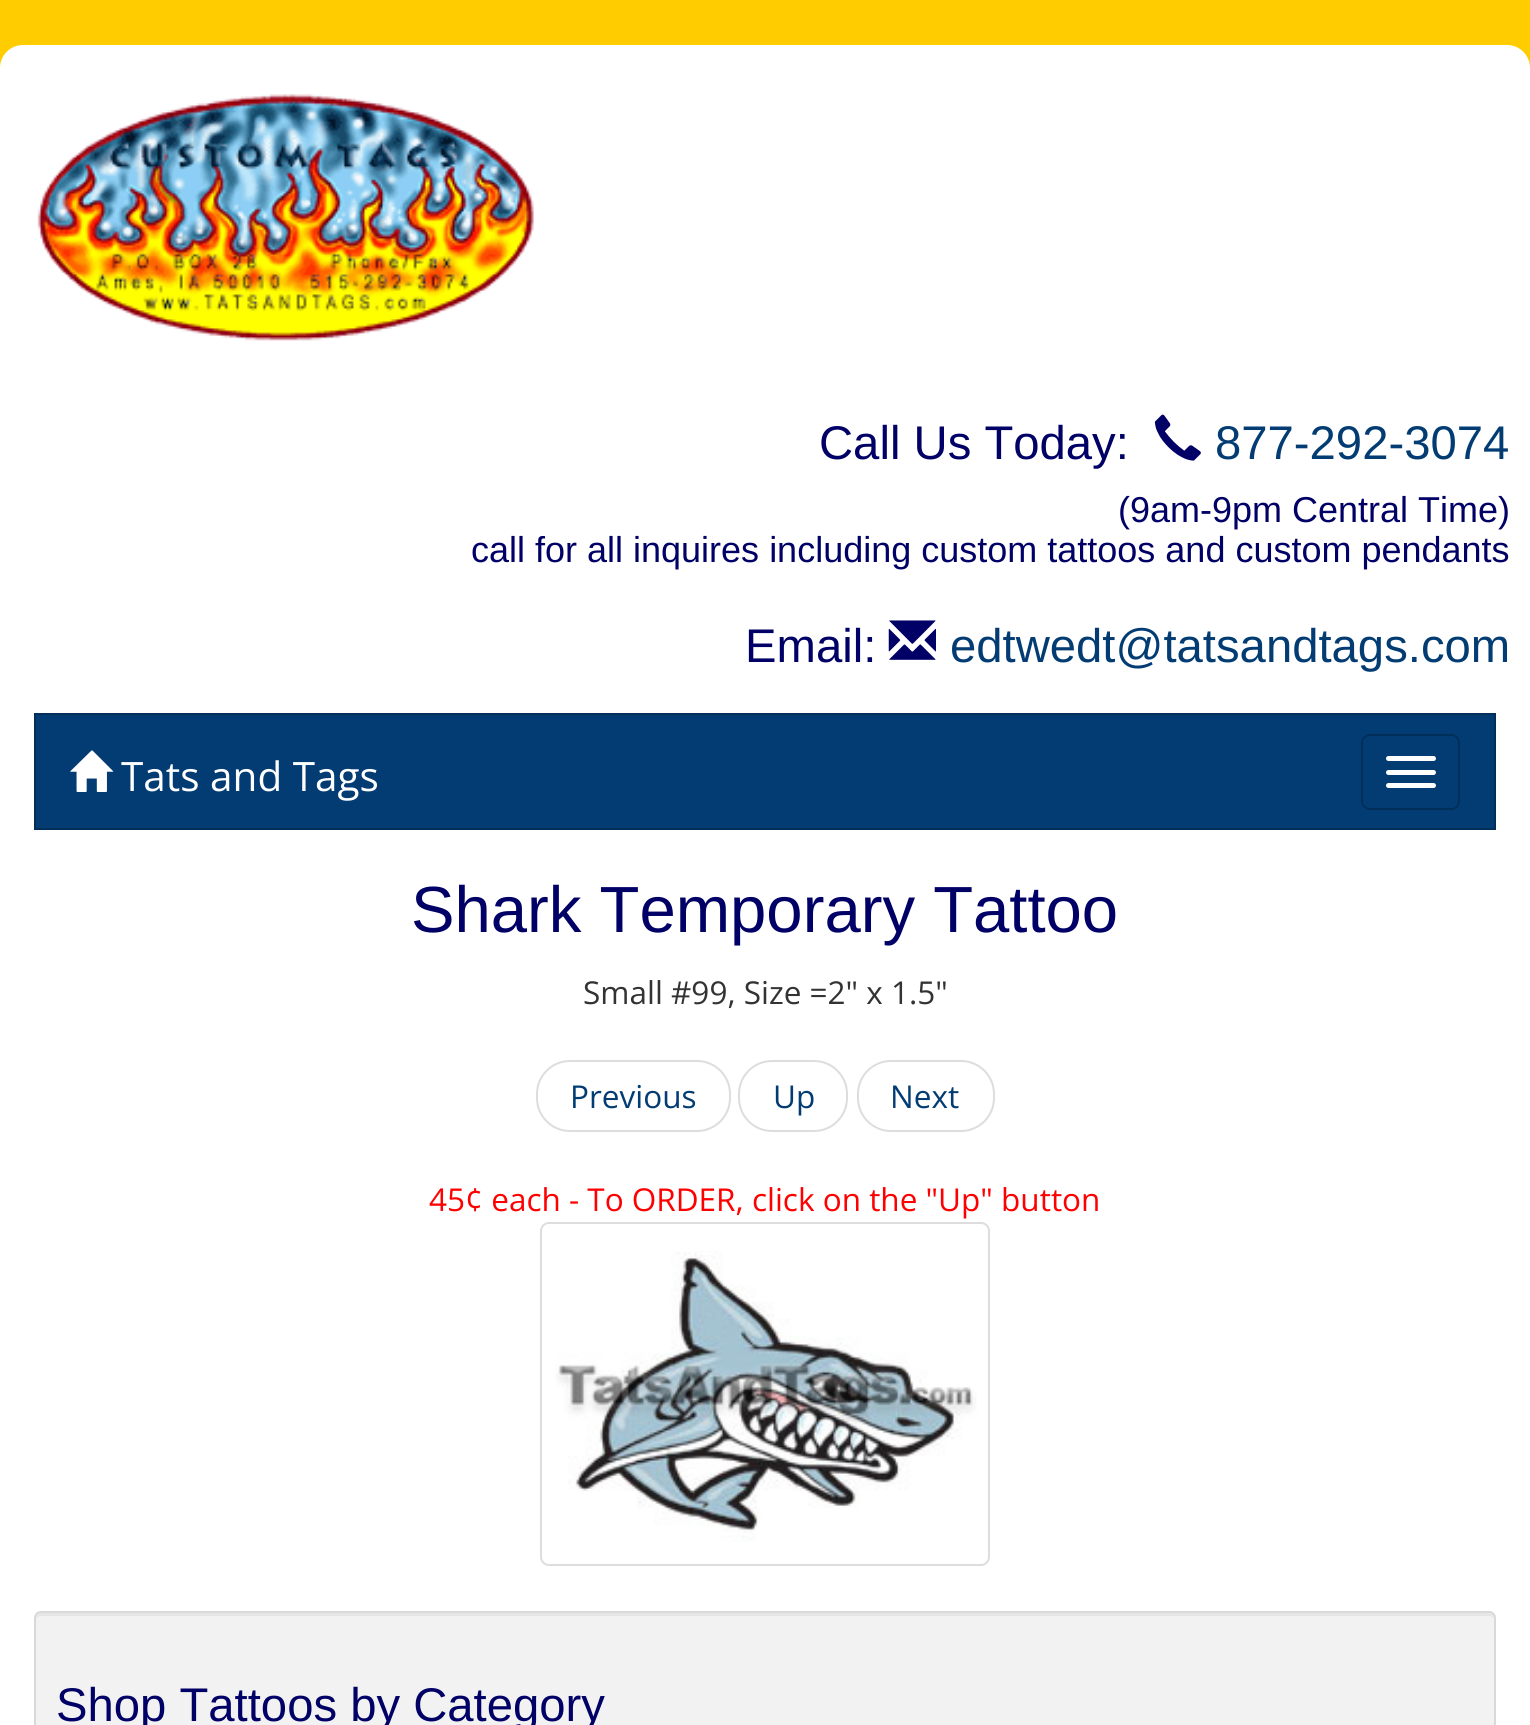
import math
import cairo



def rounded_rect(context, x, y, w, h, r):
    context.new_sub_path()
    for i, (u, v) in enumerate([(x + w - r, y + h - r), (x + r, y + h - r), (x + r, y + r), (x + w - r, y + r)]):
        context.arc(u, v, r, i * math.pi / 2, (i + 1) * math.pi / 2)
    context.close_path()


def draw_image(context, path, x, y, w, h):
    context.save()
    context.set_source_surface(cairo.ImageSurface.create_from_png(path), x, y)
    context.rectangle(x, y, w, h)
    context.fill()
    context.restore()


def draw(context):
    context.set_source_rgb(1, 204 / 255, 0)
    context.paint()
    context.set_source_rgb(1, 1, 1)
    rounded_rect(context, 0, 45, 1530, 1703, 23)
    context.fill()
    draw_image(context, "images/1.png", 37, 94, 497, 247)
    draw_image(context, "images/2.png", 1154, 414, 47, 47)
    draw_image(context, "images/3.png", 888, 620, 48, 40)
    context.set_source_rgb(3 / 255, 60 / 255, 115 / 255)
    context.rectangle(35, 714, 1460, 115)
    context.fill_preserve()
    context.set_source_rgb(2 / 255, 47 / 255, 90 / 255)
    context.stroke()
    draw_image(context, "images/4.png", 70, 750, 44, 42)
    rounded_rect(context, 1362, 735, 97, 74, 8)
    context.stroke()
    context.set_source_rgb(1, 1, 1)
    rounded_rect(context, 1386, 756, 50, 5, 2.5)
    context.fill()
    rounded_rect(context, 1386, 770, 50, 5, 2.5)
    context.fill()
    rounded_rect(context, 1386, 783, 50, 5, 2.5)
    context.fill()
    rounded_rect(context, 537, 1061, 193, 70, 33)
    context.set_source_rgb(221 / 255, 221 / 255, 221 / 255)
    context.stroke()
    rounded_rect(context, 739, 1061, 108, 70, 33)
    context.stroke()
    rounded_rect(context, 858, 1061, 136, 70, 33)
    context.stroke()
    rounded_rect(context, 541, 1223, 448, 342, 8)
    context.stroke()
    draw_image(context, "images/5.png", 555, 1251, 422, 291)
    context.set_source_rgb(242 / 255, 242 / 255, 242 / 255)
    rounded_rect(context, 34, 1611, 1462, 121, 7)
    context.fill()
    context.set_source_rgb(230 / 255, 230 / 255, 230 / 255)
    context.new_path()
    context.move_to(40, 1616)
    context.line_to(1490, 1616)
    context.curve_to(1492, 1616, 1494, 1618, 1494, 1620)
    context.curve_to(1494, 1617, 1493, 1613, 1489, 1613)
    context.line_to(41, 1613)
    context.curve_to(37, 1613, 36, 1617, 36, 1620)
    context.curve_to(36, 1618, 38, 1616, 40, 1616)
    context.close_path()
    context.fill()
    rounded_rect(context, 35, 1612, 1460, 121, 6)
    context.set_source_rgb(217 / 255, 217 / 255, 217 / 255)
    context.stroke()
    context.select_font_face("Liberation Sans")
    context.set_font_size(47.25)
    context.set_source_rgb(0, 0, 102 / 255)
    context.move_to(819, 459)
    context.show_text("Call Us Today:")
    context.set_source_rgb(3 / 255, 60 / 255, 115 / 255)
    context.move_to(1215, 459)
    context.show_text("877-292-3074")
    context.set_font_size(36)
    context.set_source_rgb(0, 0, 102 / 255)
    context.move_to(1118, 522)
    context.show_text("(9am-9pm Central Time)")
    context.move_to(471, 562)
    context.show_text("call for all inquires including custom tattoos and custom pendants")
    context.set_font_size(47.25)
    context.move_to(745, 662)
    context.show_text("Email:")
    context.set_source_rgb(3 / 255, 60 / 255, 115 / 255)
    context.move_to(950, 662)
    context.show_text("edtwedt@tatsandtags.com")
    context.select_font_face("Open Sans")
    context.set_font_size(40.5)
    context.set_source_rgb(1, 1, 1)
    context.move_to(121, 791)
    context.show_text("Tats and Tags")
    context.select_font_face("Liberation Sans")
    context.set_font_size(65.25)
    context.set_source_rgb(0, 0, 102 / 255)
    context.move_to(411, 932)
    context.show_text("Shark Temporary Tattoo")
    context.select_font_face("Open Sans")
    context.set_font_size(31.5)
    context.set_source_rgb(51 / 255, 51 / 255, 51 / 255)
    context.move_to(583, 1004)
    context.show_text("Small #99, Size =2\" x 1.5\"")
    context.set_source_rgb(3 / 255, 60 / 255, 115 / 255)
    context.move_to(570, 1108)
    context.show_text("Previous")
    context.move_to(773, 1108)
    context.show_text("Up")
    context.move_to(890, 1108)
    context.show_text("Next")
    context.set_source_rgb(1, 0, 0)
    context.move_to(429, 1211)
    context.show_text("45¢ each - To ORDER, click on the \"Up\" button")
    context.select_font_face("Liberation Sans")
    context.set_font_size(47.25)
    context.set_source_rgb(0, 0, 102 / 255)
    context.move_to(56, 1721)
    context.show_text("Shop Tattoos by Category")


surface = cairo.ImageSurface(cairo.Format.RGB24, 1530, 1725)
context = cairo.Context(surface)
options = cairo.FontOptions()
options.set_hint_metrics(cairo.HintMetrics.OFF)
options.set_hint_style(cairo.HintStyle.NONE)
context.set_font_options(options)
context.set_miter_limit(4)
draw(context)
surface.write_to_png("out.png")
